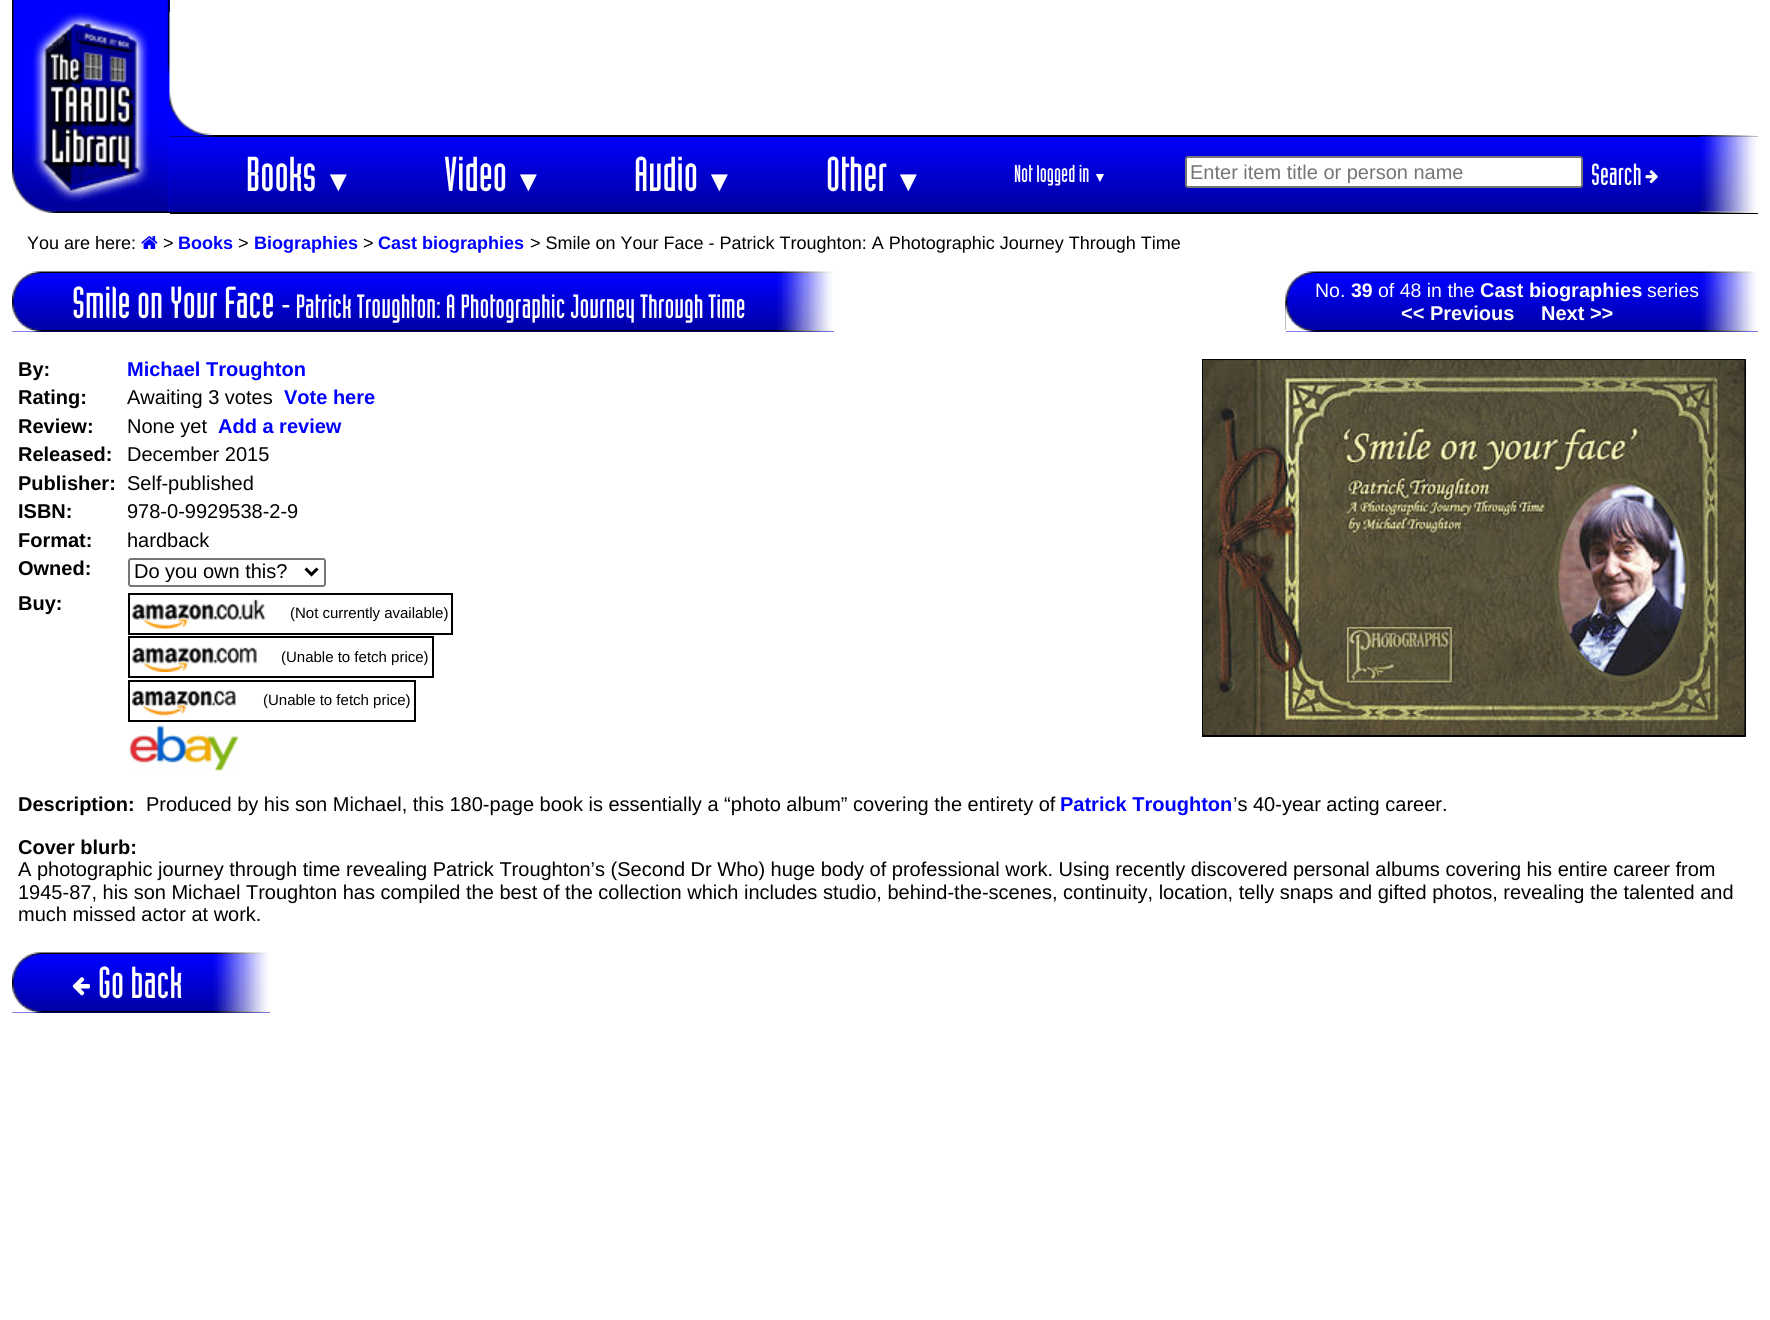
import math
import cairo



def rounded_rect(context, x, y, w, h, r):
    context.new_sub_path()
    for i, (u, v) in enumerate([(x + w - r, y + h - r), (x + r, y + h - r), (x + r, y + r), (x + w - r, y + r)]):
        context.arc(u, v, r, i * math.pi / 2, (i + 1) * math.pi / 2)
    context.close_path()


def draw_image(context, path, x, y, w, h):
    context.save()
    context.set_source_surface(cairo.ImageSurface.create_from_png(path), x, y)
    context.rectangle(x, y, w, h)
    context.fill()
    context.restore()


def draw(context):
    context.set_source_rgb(1, 1, 1)
    context.paint()
    context.set_source_rgb(0, 0, 1)
    context.rectangle(169, 0, 1, 213)
    context.fill()
    draw_image(context, "images/1.png", 12, 0, 158, 213)
    draw_image(context, "images/2.png", 31, 12, 121, 192)
    draw_image(context, "images/3.png", 169, 12, 43, 123)
    context.set_source_rgb(0, 0, 0)
    context.rectangle(170, 135, 1588, 2)
    context.fill()
    draw_image(context, "images/4.png", 1702, 135, 56, 2)
    draw_image(context, "images/5.png", 170, 135, 45, 2)
    context.rectangle(170, 212, 1588, 2)
    context.fill()
    draw_image(context, "images/8.png", 1699, 211, 59, 2)
    draw_image(context, "images/7.png", 1699, 136, 59, 76)
    gradient = cairo.LinearGradient(935, 136, 935, 212)
    gradient.add_color_stop_rgba(0, 0, 0, 1, 1)
    gradient.add_color_stop_rgba(1, 0, 0, 160 / 255, 1)
    context.set_source(gradient)
    context.rectangle(170, 137, 1530, 75)
    context.fill()
    context.set_source_rgb(1, 1, 1)
    rounded_rect(context, 1186, 157, 396, 30, 2)
    context.fill_preserve()
    context.set_source_rgb(118 / 255, 118 / 255, 118 / 255)
    context.stroke()
    draw_image(context, "images/6.png", 1645, 170, 13, 14)
    draw_image(context, "images/9.png", 141, 236, 17, 13)
    context.set_source_rgb(0, 0, 208 / 255)
    context.rectangle(12, 272, 822, 60)
    context.fill()
    draw_image(context, "images/10.png", 12, 271, 30, 2)
    draw_image(context, "images/11.png", 42, 271, 734, 2)
    draw_image(context, "images/12.png", 775, 271, 59, 2)
    draw_image(context, "images/13.png", 12, 273, 30, 56)
    draw_image(context, "images/14.png", 12, 301, 30, 29)
    draw_image(context, "images/15.png", 42, 273, 734, 57)
    draw_image(context, "images/16.png", 775, 273, 59, 57)
    draw_image(context, "images/17.png", 12, 330, 30, 2)
    draw_image(context, "images/18.png", 42, 330, 734, 2)
    draw_image(context, "images/19.png", 775, 330, 59, 2)
    context.rectangle(1286, 272, 472, 60)
    context.fill()
    draw_image(context, "images/21.png", 1315, 271, 385, 2)
    draw_image(context, "images/20.png", 1286, 271, 30, 2)
    draw_image(context, "images/12.png", 1699, 271, 59, 2)
    draw_image(context, "images/22.png", 1285, 273, 31, 57)
    draw_image(context, "images/24.png", 1315, 273, 385, 57)
    draw_image(context, "images/23.png", 1285, 301, 31, 29)
    draw_image(context, "images/16.png", 1699, 273, 59, 57)
    draw_image(context, "images/26.png", 1315, 330, 385, 2)
    draw_image(context, "images/25.png", 1286, 330, 30, 2)
    draw_image(context, "images/19.png", 1699, 330, 59, 2)
    rounded_rect(context, 129, 559, 196, 27, 2)
    context.set_source_rgb(118 / 255, 118 / 255, 118 / 255)
    context.stroke()
    context.new_path()
    context.move_to(305.5, 568.5)
    context.line_to(311.5, 574.5)
    context.line_to(317.5, 568.5)
    context.set_source_rgb(0, 0, 0)
    context.set_line_width(3)
    context.stroke()
    context.rectangle(129, 594, 323, 40)
    context.set_line_width(2)
    context.stroke()
    draw_image(context, "images/27.png", 132, 599, 134, 30)
    context.rectangle(129, 637, 304, 40)
    context.stroke()
    draw_image(context, "images/28.png", 132, 647, 125, 25)
    context.rectangle(129, 681, 286, 40)
    context.stroke()
    draw_image(context, "images/29.png", 132, 689, 104, 27)
    draw_image(context, "images/30.png", 129, 725, 110, 46)
    context.rectangle(1203, 360, 542, 376)
    context.stroke()
    draw_image(context, "images/31.png", 1203, 360, 542, 375)
    context.set_source_rgb(0, 0, 208 / 255)
    context.rectangle(12, 953, 258, 60)
    context.fill()
    draw_image(context, "images/10.png", 12, 952, 30, 2)
    draw_image(context, "images/32.png", 42, 952, 170, 2)
    draw_image(context, "images/12.png", 211, 952, 59, 2)
    draw_image(context, "images/13.png", 12, 954, 30, 56)
    draw_image(context, "images/14.png", 12, 982, 30, 29)
    draw_image(context, "images/33.png", 42, 954, 170, 57)
    draw_image(context, "images/34.png", 72, 977, 18, 19)
    draw_image(context, "images/16.png", 211, 954, 59, 57)
    draw_image(context, "images/17.png", 12, 1011, 30, 2)
    draw_image(context, "images/35.png", 42, 1011, 170, 2)
    draw_image(context, "images/19.png", 211, 1011, 59, 2)
    context.select_font_face("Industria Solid")
    context.set_font_size(48)
    context.set_source_rgb(1, 1, 1)
    context.move_to(246, 191)
    context.show_text("Books")
    context.select_font_face("Liberation Sans")
    context.set_font_size(29)
    context.move_to(324, 191)
    context.show_text("▼")
    context.select_font_face("Industria Solid")
    context.set_font_size(48)
    context.move_to(444, 191)
    context.show_text("Video")
    context.select_font_face("Liberation Sans")
    context.set_font_size(29)
    context.move_to(514, 191)
    context.show_text("▼")
    context.select_font_face("Industria Solid")
    context.set_font_size(48)
    context.move_to(634, 191)
    context.show_text("Audio")
    context.select_font_face("Liberation Sans")
    context.set_font_size(29)
    context.move_to(705, 191)
    context.show_text("▼")
    context.select_font_face("Industria Solid")
    context.set_font_size(48)
    context.move_to(826, 191)
    context.show_text("Other")
    context.select_font_face("Liberation Sans")
    context.set_font_size(29)
    context.move_to(894, 191)
    context.show_text("▼")
    context.select_font_face("Industria Solid")
    context.set_font_size(24)
    context.move_to(1014, 182)
    context.show_text("Not logged in")
    context.select_font_face("Liberation Sans")
    context.set_font_size(14)
    context.move_to(1093, 182)
    context.show_text("▼")
    context.set_font_size(20)
    context.set_source_rgb(117 / 255, 117 / 255, 117 / 255)
    context.move_to(1190, 179)
    context.show_text("Enter item title or person name")
    context.select_font_face("Industria Solid")
    context.set_font_size(30)
    context.set_source_rgb(1, 1, 1)
    context.move_to(1591, 185)
    context.show_text("Search")
    context.select_font_face("Liberation Sans")
    context.set_font_size(18)
    context.set_source_rgb(0, 0, 0)
    context.move_to(27, 249)
    context.show_text("You are here:")
    context.move_to(163, 249)
    context.show_text(">")
    context.select_font_face("Liberation Sans", cairo.FontSlant.NORMAL, cairo.FontWeight.BOLD)
    context.set_source_rgb(0, 0, 1)
    context.move_to(178, 249)
    context.show_text("Books")
    context.select_font_face("Liberation Sans")
    context.set_source_rgb(0, 0, 0)
    context.move_to(238, 249)
    context.show_text(">")
    context.select_font_face("Liberation Sans", cairo.FontSlant.NORMAL, cairo.FontWeight.BOLD)
    context.set_source_rgb(0, 0, 1)
    context.move_to(254, 249)
    context.show_text("Biographies")
    context.select_font_face("Liberation Sans")
    context.set_source_rgb(0, 0, 0)
    context.move_to(363, 249)
    context.show_text(">")
    context.select_font_face("Liberation Sans", cairo.FontSlant.NORMAL, cairo.FontWeight.BOLD)
    context.set_source_rgb(0, 0, 1)
    context.move_to(378, 249)
    context.show_text("Cast biographies")
    context.select_font_face("Liberation Sans")
    context.set_source_rgb(0, 0, 0)
    context.move_to(530, 249)
    context.show_text("> Smile on Your Face - Patrick Troughton: A Photographic Journey Through Time")
    context.select_font_face("Industria Solid")
    context.set_font_size(44)
    context.set_source_rgb(1, 1, 1)
    context.move_to(72, 318)
    context.show_text("Smile on Your Face")
    context.set_font_size(33)
    context.move_to(281, 318)
    context.show_text("- Patrick Troughton: A Photographic Journey Through Time")
    context.select_font_face("Liberation Sans")
    context.set_font_size(19.5)
    context.move_to(1315, 297)
    context.show_text("No.")
    context.select_font_face("Liberation Sans", cairo.FontSlant.NORMAL, cairo.FontWeight.BOLD)
    context.move_to(1351, 297)
    context.show_text("39")
    context.select_font_face("Liberation Sans")
    context.move_to(1378, 297)
    context.show_text("of 48 in the")
    context.select_font_face("Liberation Sans", cairo.FontSlant.NORMAL, cairo.FontWeight.BOLD)
    context.set_font_size(20)
    context.move_to(1480, 297)
    context.show_text("Cast biographies")
    context.select_font_face("Liberation Sans")
    context.set_font_size(19.5)
    context.move_to(1647, 297)
    context.show_text("series")
    context.select_font_face("Liberation Sans", cairo.FontSlant.NORMAL, cairo.FontWeight.BOLD)
    context.set_font_size(20)
    context.move_to(1401, 320)
    context.show_text("<< Previous")
    context.move_to(1541, 320)
    context.show_text("Next >>")
    context.set_source_rgb(0, 0, 0)
    context.move_to(18, 376)
    context.show_text("By:")
    context.set_source_rgb(0, 0, 1)
    context.move_to(127, 376)
    context.show_text("Michael Troughton")
    context.set_source_rgb(0, 0, 0)
    context.move_to(18, 404)
    context.show_text("Rating:")
    context.select_font_face("Liberation Sans")
    context.move_to(127, 404)
    context.show_text("Awaiting 3 votes")
    context.select_font_face("Liberation Sans", cairo.FontSlant.NORMAL, cairo.FontWeight.BOLD)
    context.set_source_rgb(0, 0, 1)
    context.move_to(284, 404)
    context.show_text("Vote here")
    context.set_source_rgb(0, 0, 0)
    context.move_to(18, 433)
    context.show_text("Review:")
    context.select_font_face("Liberation Sans")
    context.move_to(127, 433)
    context.show_text("None yet")
    context.select_font_face("Liberation Sans", cairo.FontSlant.NORMAL, cairo.FontWeight.BOLD)
    context.set_source_rgb(0, 0, 1)
    context.move_to(218, 433)
    context.show_text("Add a review")
    context.set_source_rgb(0, 0, 0)
    context.move_to(18, 461)
    context.show_text("Released:")
    context.select_font_face("Liberation Sans")
    context.move_to(127, 461)
    context.show_text("December 2015")
    context.select_font_face("Liberation Sans", cairo.FontSlant.NORMAL, cairo.FontWeight.BOLD)
    context.move_to(18, 490)
    context.show_text("Publisher:")
    context.select_font_face("Liberation Sans")
    context.move_to(127, 490)
    context.show_text("Self-published")
    context.select_font_face("Liberation Sans", cairo.FontSlant.NORMAL, cairo.FontWeight.BOLD)
    context.move_to(18, 518)
    context.show_text("ISBN:")
    context.select_font_face("Liberation Sans")
    context.move_to(127, 518)
    context.show_text("978-0-9929538-2-9")
    context.select_font_face("Liberation Sans", cairo.FontSlant.NORMAL, cairo.FontWeight.BOLD)
    context.move_to(18, 547)
    context.show_text("Format:")
    context.select_font_face("Liberation Sans")
    context.move_to(127, 547)
    context.show_text("hardback")
    context.select_font_face("Liberation Sans", cairo.FontSlant.NORMAL, cairo.FontWeight.BOLD)
    context.move_to(18, 575)
    context.show_text("Owned:")
    context.select_font_face("Liberation Sans")
    context.move_to(134, 578)
    context.show_text("Do you own this?")
    context.select_font_face("Liberation Sans", cairo.FontSlant.NORMAL, cairo.FontWeight.BOLD)
    context.move_to(18, 610)
    context.show_text("Buy:")
    context.select_font_face("Liberation Sans")
    context.set_font_size(15)
    context.move_to(290, 618)
    context.show_text("(Not currently available)")
    context.move_to(281, 662)
    context.show_text("(Unable to fetch price)")
    context.move_to(263, 705)
    context.show_text("(Unable to fetch price)")
    context.select_font_face("Liberation Sans", cairo.FontSlant.NORMAL, cairo.FontWeight.BOLD)
    context.set_font_size(20)
    context.move_to(18, 811)
    context.show_text("Description:")
    context.select_font_face("Liberation Sans")
    context.move_to(146, 811)
    context.show_text("Produced by his son Michael, this 180-page book is essentially a “photo album” covering the entirety of")
    context.select_font_face("Liberation Sans", cairo.FontSlant.NORMAL, cairo.FontWeight.BOLD)
    context.set_source_rgb(0, 0, 1)
    context.move_to(1060, 811)
    context.show_text("Patrick Troughton")
    context.select_font_face("Liberation Sans")
    context.set_source_rgb(0, 0, 0)
    context.move_to(1233, 811)
    context.show_text("’s 40-year acting career.")
    context.select_font_face("Liberation Sans", cairo.FontSlant.NORMAL, cairo.FontWeight.BOLD)
    context.move_to(18, 854)
    context.show_text("Cover blurb:")
    context.select_font_face("Liberation Sans")
    context.move_to(18, 876)
    context.show_text("A photographic journey through time revealing Patrick Troughton’s (Second Dr Who) huge body of professional work. Using recently discovered personal albums covering his entire career from")
    context.move_to(18, 899)
    context.show_text("1945-87, his son Michael Troughton has compiled the best of the collection which includes studio, behind-the-scenes, continuity, location, telly snaps and gifted photos, revealing the talented and")
    context.move_to(18, 921)
    context.show_text("much missed actor at work.")
    context.select_font_face("Industria Solid")
    context.set_font_size(44)
    context.set_source_rgb(1, 1, 1)
    context.move_to(98, 998)
    context.show_text("Go back")


surface = cairo.ImageSurface(cairo.Format.RGB24, 1770, 1320)
context = cairo.Context(surface)
options = cairo.FontOptions()
options.set_hint_metrics(cairo.HintMetrics.OFF)
options.set_hint_style(cairo.HintStyle.NONE)
context.set_font_options(options)
context.set_miter_limit(4)
draw(context)
surface.write_to_png("out.png")
